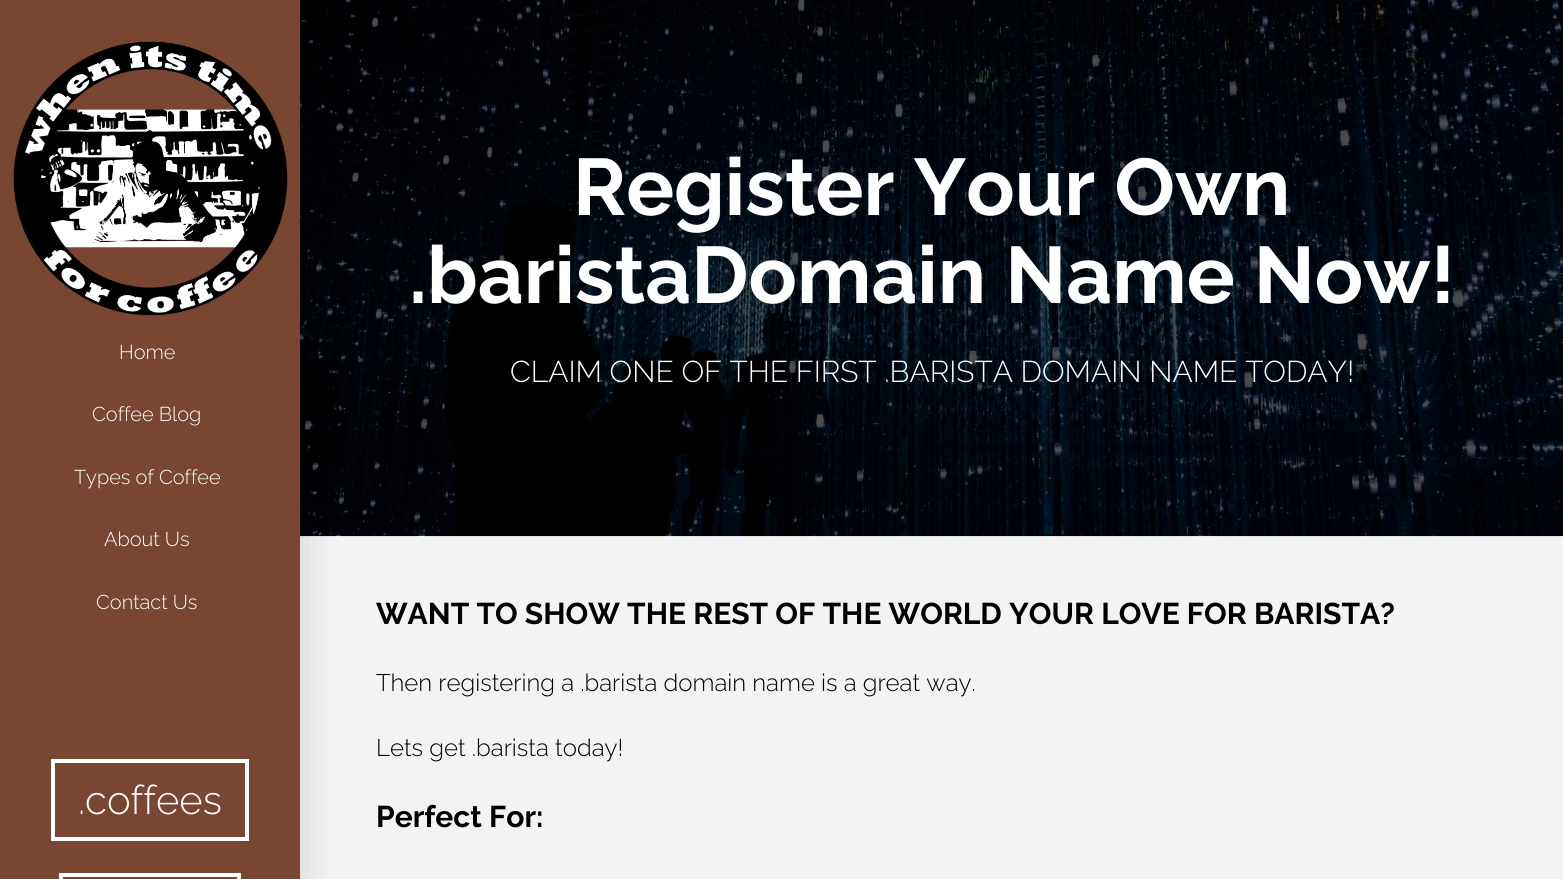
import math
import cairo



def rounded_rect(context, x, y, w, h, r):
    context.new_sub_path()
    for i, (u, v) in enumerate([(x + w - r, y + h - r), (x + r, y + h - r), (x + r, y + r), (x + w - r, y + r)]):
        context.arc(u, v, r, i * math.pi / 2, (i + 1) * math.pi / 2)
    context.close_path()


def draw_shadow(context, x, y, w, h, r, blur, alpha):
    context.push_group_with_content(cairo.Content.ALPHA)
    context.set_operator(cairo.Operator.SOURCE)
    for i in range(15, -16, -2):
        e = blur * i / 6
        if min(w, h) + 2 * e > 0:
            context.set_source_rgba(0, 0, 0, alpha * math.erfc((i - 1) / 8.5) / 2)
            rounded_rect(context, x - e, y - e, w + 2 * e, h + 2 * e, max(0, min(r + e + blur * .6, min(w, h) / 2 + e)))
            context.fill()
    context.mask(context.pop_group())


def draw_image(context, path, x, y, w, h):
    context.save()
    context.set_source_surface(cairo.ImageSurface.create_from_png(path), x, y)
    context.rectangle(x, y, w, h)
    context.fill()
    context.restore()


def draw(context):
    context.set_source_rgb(243 / 255, 243 / 255, 243 / 255)
    context.paint()
    draw_image(context, "images/2.png", 300, 0, 1263, 537)
    context.set_source_rgb(0, 0, 0)
    draw_shadow(context, 0, 3, 300, 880, 0, 20, 0.15)
    context.set_source_rgb(120 / 255, 70 / 255, 49 / 255)
    context.rectangle(0, 0, 300, 879)
    context.fill()
    draw_image(context, "images/1.png", 13, 41, 275, 275)
    context.rectangle(53, 761, 194, 78)
    context.set_source_rgb(1, 1, 1)
    context.set_line_width(4)
    context.stroke()
    context.rectangle(61, 875, 178, 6)
    context.stroke()
    context.select_font_face("Raleway Light")
    context.set_font_size(20)
    context.move_to(119, 359)
    context.show_text("Home")
    context.move_to(92, 421)
    context.show_text("Coffee Blog")
    context.move_to(74, 484)
    context.show_text("Types of Coffee")
    context.move_to(104, 546)
    context.show_text("About Us")
    context.move_to(96, 609)
    context.show_text("Contact Us")
    context.set_font_size(40)
    context.move_to(78, 814)
    context.show_text(".coffees")
    context.select_font_face("Raleway", cairo.FontSlant.NORMAL, cairo.FontWeight.BOLD)
    context.set_font_size(80)
    context.move_to(573, 215)
    context.show_text("Register Your Own")
    context.move_to(409, 303)
    context.show_text(".baristaDomain Name Now!")
    context.select_font_face("Raleway Light")
    context.set_font_size(30)
    context.move_to(510, 382)
    context.show_text("CLAIM ONE OF THE FIRST .BARISTA DOMAIN NAME TODAY!")
    context.select_font_face("Raleway", cairo.FontSlant.NORMAL, cairo.FontWeight.BOLD)
    context.set_source_rgb(0, 0, 0)
    context.move_to(376, 624)
    context.show_text("WANT TO SHOW THE REST OF THE WORLD YOUR LOVE FOR BARISTA?")
    context.select_font_face("Raleway Light")
    context.set_font_size(24)
    context.move_to(376, 691)
    context.show_text("Then registering a .barista domain name is a great way.")
    context.move_to(376, 756)
    context.show_text("Lets get .barista today!")
    context.select_font_face("Raleway", cairo.FontSlant.NORMAL, cairo.FontWeight.BOLD)
    context.set_font_size(30)
    context.move_to(376, 827)
    context.show_text("Perfect For:")


surface = cairo.ImageSurface(cairo.Format.RGB24, 1563, 879)
context = cairo.Context(surface)
options = cairo.FontOptions()
options.set_hint_metrics(cairo.HintMetrics.OFF)
options.set_hint_style(cairo.HintStyle.NONE)
context.set_font_options(options)
context.set_miter_limit(4)
draw(context)
surface.write_to_png("out.png")
